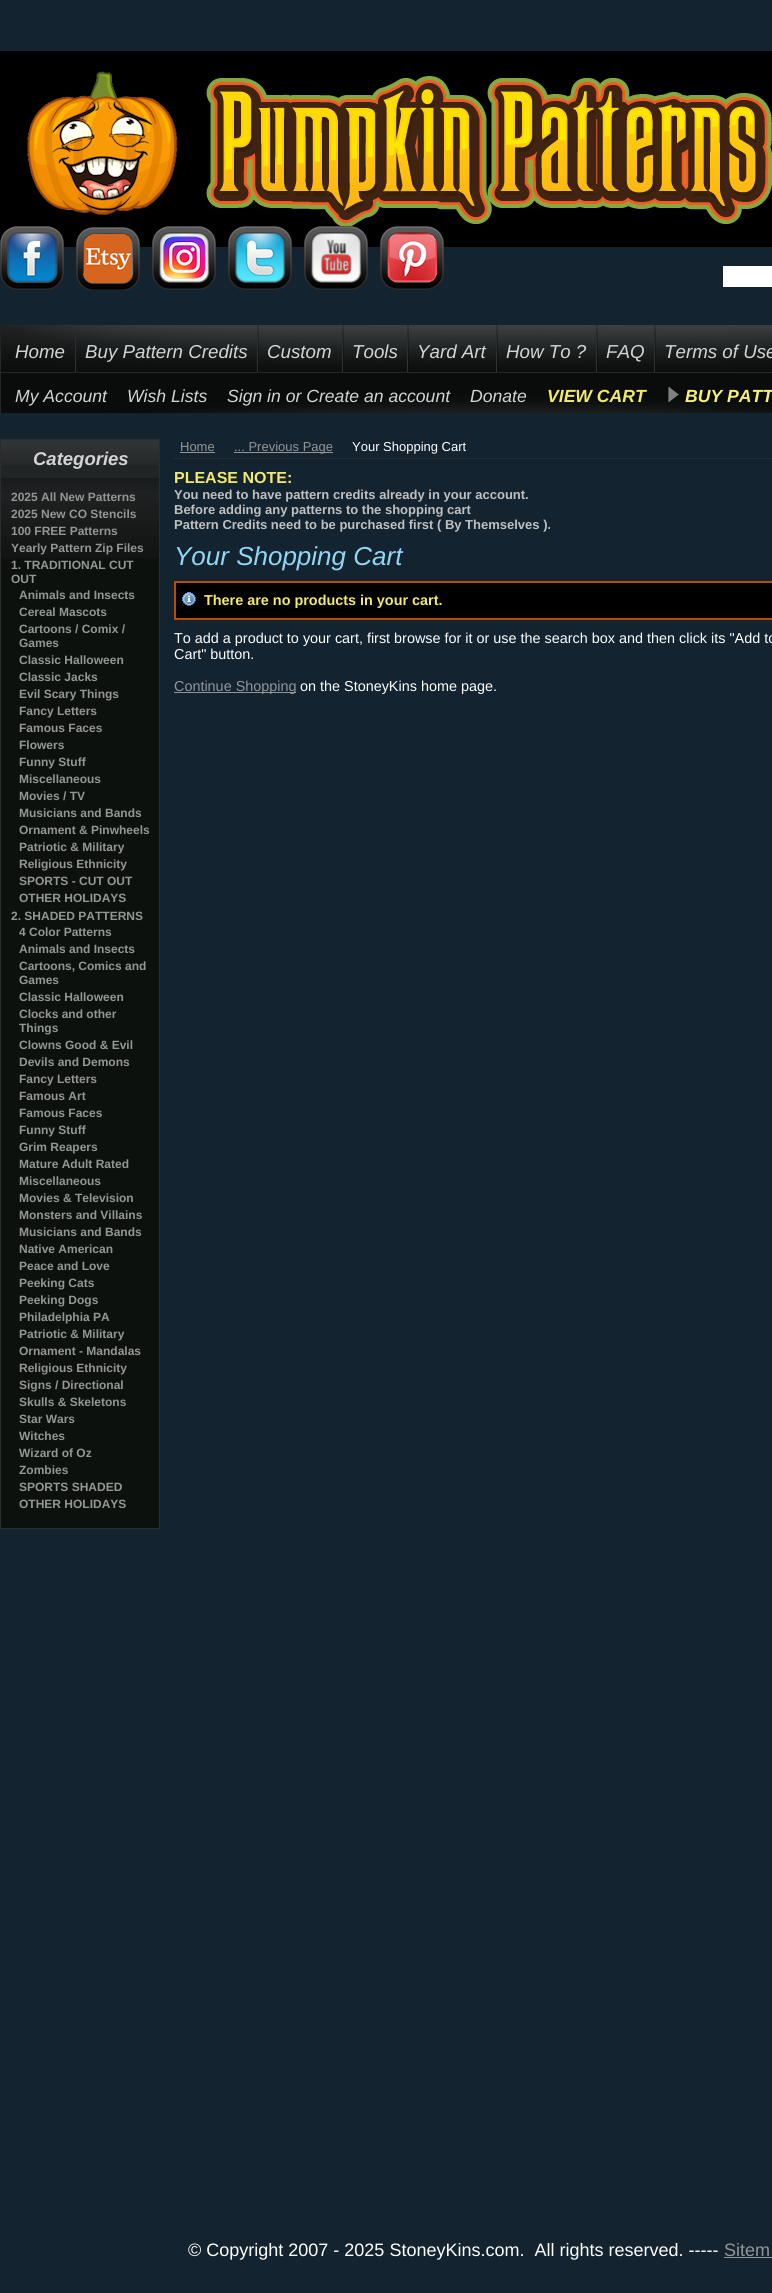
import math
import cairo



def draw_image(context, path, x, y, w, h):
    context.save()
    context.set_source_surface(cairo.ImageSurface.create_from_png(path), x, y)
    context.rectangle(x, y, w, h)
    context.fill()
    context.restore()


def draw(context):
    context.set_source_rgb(19 / 255, 35 / 255, 47 / 255)
    context.paint()
    draw_image(context, "images/1.png", 0, 51, 772, 196)
    draw_image(context, "images/2.png", 0, 226, 64, 64)
    draw_image(context, "images/3.png", 76, 227, 64, 63)
    draw_image(context, "images/4.png", 152, 226, 64, 64)
    draw_image(context, "images/5.png", 228, 226, 64, 64)
    draw_image(context, "images/6.png", 304, 226, 64, 64)
    draw_image(context, "images/7.png", 380, 226, 64, 64)
    context.set_source_rgb(1, 1, 1)
    context.rectangle(723, 266, 49, 21)
    context.fill()
    draw_image(context, "images/8.png", 0, 325, 772, 48)
    draw_image(context, "images/9.png", 75, 334, 1, 38)
    draw_image(context, "images/10.png", 257, 325, 2, 47)
    draw_image(context, "images/10.png", 342, 325, 2, 47)
    draw_image(context, "images/10.png", 407, 325, 2, 47)
    draw_image(context, "images/10.png", 496, 325, 2, 47)
    draw_image(context, "images/10.png", 596, 325, 2, 47)
    draw_image(context, "images/10.png", 654, 325, 2, 47)
    draw_image(context, "images/11.png", 0, 373, 772, 40)
    draw_image(context, "images/12.png", 668, 387, 11, 15)
    context.set_source_rgb(13 / 255, 17 / 255, 14 / 255)
    context.rectangle(1, 558, 158, 970)
    context.fill()
    context.rectangle(0.5, 439.5, 159, 1089)
    context.set_source_rgb(44 / 255, 44 / 255, 44 / 255)
    context.set_line_width(1)
    context.stroke()
    context.set_source_rgb(34 / 255, 37 / 255, 37 / 255)
    context.rectangle(1, 465, 158, 13)
    context.fill()
    draw_image(context, "images/13.png", 1, 440, 158, 25)
    draw_image(context, "images/14.png", 1, 478, 158, 80)
    context.set_source_rgb(44 / 255, 44 / 255, 44 / 255)
    context.rectangle(174, 458, 598, 1)
    context.fill()
    context.set_source_rgb(149 / 255, 149 / 255, 149 / 255)
    context.rectangle(180, 452, 35, 1)
    context.fill()
    context.rectangle(234, 452, 99, 1)
    context.fill()
    context.set_source_rgb(0, 0, 0)
    context.rectangle(176, 583, 596, 35)
    context.fill()
    draw_image(context, "images/15.png", 182, 592, 14, 14)
    context.rectangle(175, 582, 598, 37)
    context.set_source_rgb(185 / 255, 76 / 255, 0)
    context.set_line_width(2)
    context.stroke()
    context.set_source_rgb(149 / 255, 149 / 255, 149 / 255)
    context.rectangle(174, 692, 122, 1)
    context.fill()
    context.rectangle(724, 2257, 48, 1)
    context.fill()
    context.select_font_face("Liberation Sans", cairo.FontSlant.ITALIC)
    context.set_font_size(18.75)
    context.set_source_rgb(212 / 255, 212 / 255, 212 / 255)
    context.move_to(15, 358)
    context.show_text("Home")
    context.move_to(85, 358)
    context.show_text("Buy Pattern Credits")
    context.move_to(267, 358)
    context.show_text("Custom")
    context.move_to(352, 358)
    context.show_text("Tools")
    context.move_to(417, 358)
    context.show_text("Yard Art")
    context.move_to(506, 358)
    context.show_text("How To ?")
    context.move_to(606, 358)
    context.show_text("FAQ")
    context.move_to(664, 358)
    context.show_text("Terms of Use")
    context.set_font_size(17.6)
    context.move_to(15, 402)
    context.show_text("My Account")
    context.move_to(127, 402)
    context.show_text("Wish Lists")
    context.move_to(227, 402)
    context.show_text("Sign in or Create an account")
    context.move_to(470, 402)
    context.show_text("Donate")
    context.select_font_face("Liberation Sans", cairo.FontSlant.ITALIC, cairo.FontWeight.BOLD)
    context.set_source_rgb(243 / 255, 234 / 255, 105 / 255)
    context.move_to(547, 402)
    context.show_text("VIEW CART")
    context.set_source_rgb(246 / 255, 241 / 255, 118 / 255)
    context.move_to(685, 402)
    context.show_text("BUY PATT")
    context.set_font_size(18.5)
    context.set_source_rgb(212 / 255, 212 / 255, 212 / 255)
    context.move_to(33, 465)
    context.show_text("Categories")
    context.select_font_face("Liberation Sans", cairo.FontSlant.NORMAL, cairo.FontWeight.BOLD)
    context.set_font_size(12)
    context.set_source_rgb(149 / 255, 149 / 255, 149 / 255)
    context.move_to(11, 501)
    context.show_text("2025 All New Patterns")
    context.move_to(11, 518)
    context.show_text("2025 New CO Stencils")
    context.move_to(11, 535)
    context.show_text("100 FREE Patterns")
    context.move_to(11, 552)
    context.show_text("Yearly Pattern Zip Files")
    context.move_to(11, 569)
    context.show_text("1. TRADITIONAL CUT")
    context.move_to(11, 583)
    context.show_text("OUT")
    context.move_to(19, 599)
    context.show_text("Animals and Insects")
    context.move_to(19, 616)
    context.show_text("Cereal Mascots")
    context.move_to(19, 633)
    context.show_text("Cartoons / Comix /")
    context.move_to(19, 647)
    context.show_text("Games")
    context.move_to(19, 664)
    context.show_text("Classic Halloween")
    context.move_to(19, 681)
    context.show_text("Classic Jacks")
    context.move_to(19, 698)
    context.show_text("Evil Scary Things")
    context.move_to(19, 715)
    context.show_text("Fancy Letters")
    context.move_to(19, 732)
    context.show_text("Famous Faces")
    context.move_to(19, 749)
    context.show_text("Flowers")
    context.move_to(19, 766)
    context.show_text("Funny Stuff")
    context.move_to(19, 783)
    context.show_text("Miscellaneous")
    context.move_to(19, 800)
    context.show_text("Movies / TV")
    context.move_to(19, 817)
    context.show_text("Musicians and Bands")
    context.move_to(19, 834)
    context.show_text("Ornament & Pinwheels")
    context.move_to(19, 851)
    context.show_text("Patriotic & Military")
    context.move_to(19, 868)
    context.show_text("Religious Ethnicity")
    context.move_to(19, 885)
    context.show_text("SPORTS - CUT OUT")
    context.move_to(19, 902)
    context.show_text("OTHER HOLIDAYS")
    context.move_to(11, 920)
    context.show_text("2. SHADED PATTERNS")
    context.move_to(19, 936)
    context.show_text("4 Color Patterns")
    context.move_to(19, 953)
    context.show_text("Animals and Insects")
    context.move_to(19, 970)
    context.show_text("Cartoons, Comics and")
    context.move_to(19, 984)
    context.show_text("Games")
    context.move_to(19, 1001)
    context.show_text("Classic Halloween")
    context.move_to(19, 1018)
    context.show_text("Clocks and other")
    context.move_to(19, 1032)
    context.show_text("Things")
    context.move_to(19, 1049)
    context.show_text("Clowns Good & Evil")
    context.move_to(19, 1066)
    context.show_text("Devils and Demons")
    context.move_to(19, 1083)
    context.show_text("Fancy Letters")
    context.move_to(19, 1100)
    context.show_text("Famous Art")
    context.move_to(19, 1117)
    context.show_text("Famous Faces")
    context.move_to(19, 1134)
    context.show_text("Funny Stuff")
    context.move_to(19, 1151)
    context.show_text("Grim Reapers")
    context.move_to(19, 1168)
    context.show_text("Mature Adult Rated")
    context.move_to(19, 1185)
    context.show_text("Miscellaneous")
    context.move_to(19, 1202)
    context.show_text("Movies & Television")
    context.move_to(19, 1219)
    context.show_text("Monsters and Villains")
    context.move_to(19, 1236)
    context.show_text("Musicians and Bands")
    context.move_to(19, 1253)
    context.show_text("Native American")
    context.move_to(19, 1270)
    context.show_text("Peace and Love")
    context.move_to(19, 1287)
    context.show_text("Peeking Cats")
    context.move_to(19, 1304)
    context.show_text("Peeking Dogs")
    context.move_to(19, 1321)
    context.show_text("Philadelphia PA")
    context.move_to(19, 1338)
    context.show_text("Patriotic & Military")
    context.move_to(19, 1355)
    context.show_text("Ornament - Mandalas")
    context.move_to(19, 1372)
    context.show_text("Religious Ethnicity")
    context.move_to(19, 1389)
    context.show_text("Signs / Directional")
    context.move_to(19, 1406)
    context.show_text("Skulls & Skeletons")
    context.move_to(19, 1423)
    context.show_text("Star Wars")
    context.move_to(19, 1440)
    context.show_text("Witches")
    context.move_to(19, 1457)
    context.show_text("Wizard of Oz")
    context.move_to(19, 1474)
    context.show_text("Zombies")
    context.move_to(19, 1491)
    context.show_text("SPORTS SHADED")
    context.move_to(19, 1508)
    context.show_text("OTHER HOLIDAYS")
    context.select_font_face("Liberation Sans")
    context.set_font_size(13)
    context.move_to(180, 451)
    context.show_text("Home")
    context.move_to(234, 451)
    context.show_text("... Previous Page")
    context.set_source_rgb(1, 1, 1)
    context.move_to(352, 451)
    context.show_text("Your Shopping Cart")
    context.select_font_face("Liberation Sans", cairo.FontSlant.NORMAL, cairo.FontWeight.BOLD)
    context.set_font_size(16)
    context.set_source_rgb(243 / 255, 234 / 255, 105 / 255)
    context.move_to(174, 483)
    context.show_text("PLEASE NOTE:")
    context.set_font_size(13)
    context.set_source_rgb(192 / 255, 192 / 255, 192 / 255)
    context.move_to(174, 499)
    context.show_text("You need to have pattern credits already in your account.")
    context.move_to(174, 514)
    context.show_text("Before adding any patterns to the shopping cart")
    context.move_to(174, 529)
    context.show_text("Pattern Credits need to be purchased first ( By Themselves ).")
    context.select_font_face("Liberation Sans", cairo.FontSlant.ITALIC)
    context.set_font_size(26)
    context.set_source_rgb(143 / 255, 215 / 255, 244 / 255)
    context.move_to(174, 565)
    context.show_text("Your Shopping Cart")
    context.select_font_face("Liberation Sans", cairo.FontSlant.NORMAL, cairo.FontWeight.BOLD)
    context.set_font_size(14.4)
    context.set_source_rgb(243 / 255, 234 / 255, 105 / 255)
    context.move_to(204, 605)
    context.show_text("There are no products in your cart.")
    context.select_font_face("Liberation Sans")
    context.set_source_rgb(1, 1, 1)
    context.move_to(174, 643)
    context.show_text("To add a product to your cart, first browse for it or use the search box and then click its \"Add to")
    context.move_to(174, 659)
    context.show_text("Cart\" button.")
    context.set_source_rgb(149 / 255, 149 / 255, 149 / 255)
    context.move_to(174, 691)
    context.show_text("Continue Shopping")
    context.set_source_rgb(1, 1, 1)
    context.move_to(300, 691)
    context.show_text("on the StoneyKins home page.")
    context.set_font_size(18)
    context.move_to(188, 2256)
    context.show_text("© Copyright 2007 - 2025 StoneyKins.com.  All rights reserved. -----")
    context.set_source_rgb(149 / 255, 149 / 255, 149 / 255)
    context.move_to(724, 2256)
    context.show_text("Sitem")


surface = cairo.ImageSurface(cairo.Format.RGB24, 772, 2293)
context = cairo.Context(surface)
options = cairo.FontOptions()
options.set_hint_metrics(cairo.HintMetrics.OFF)
options.set_hint_style(cairo.HintStyle.NONE)
context.set_font_options(options)
context.set_miter_limit(4)
draw(context)
surface.write_to_png("out.png")
